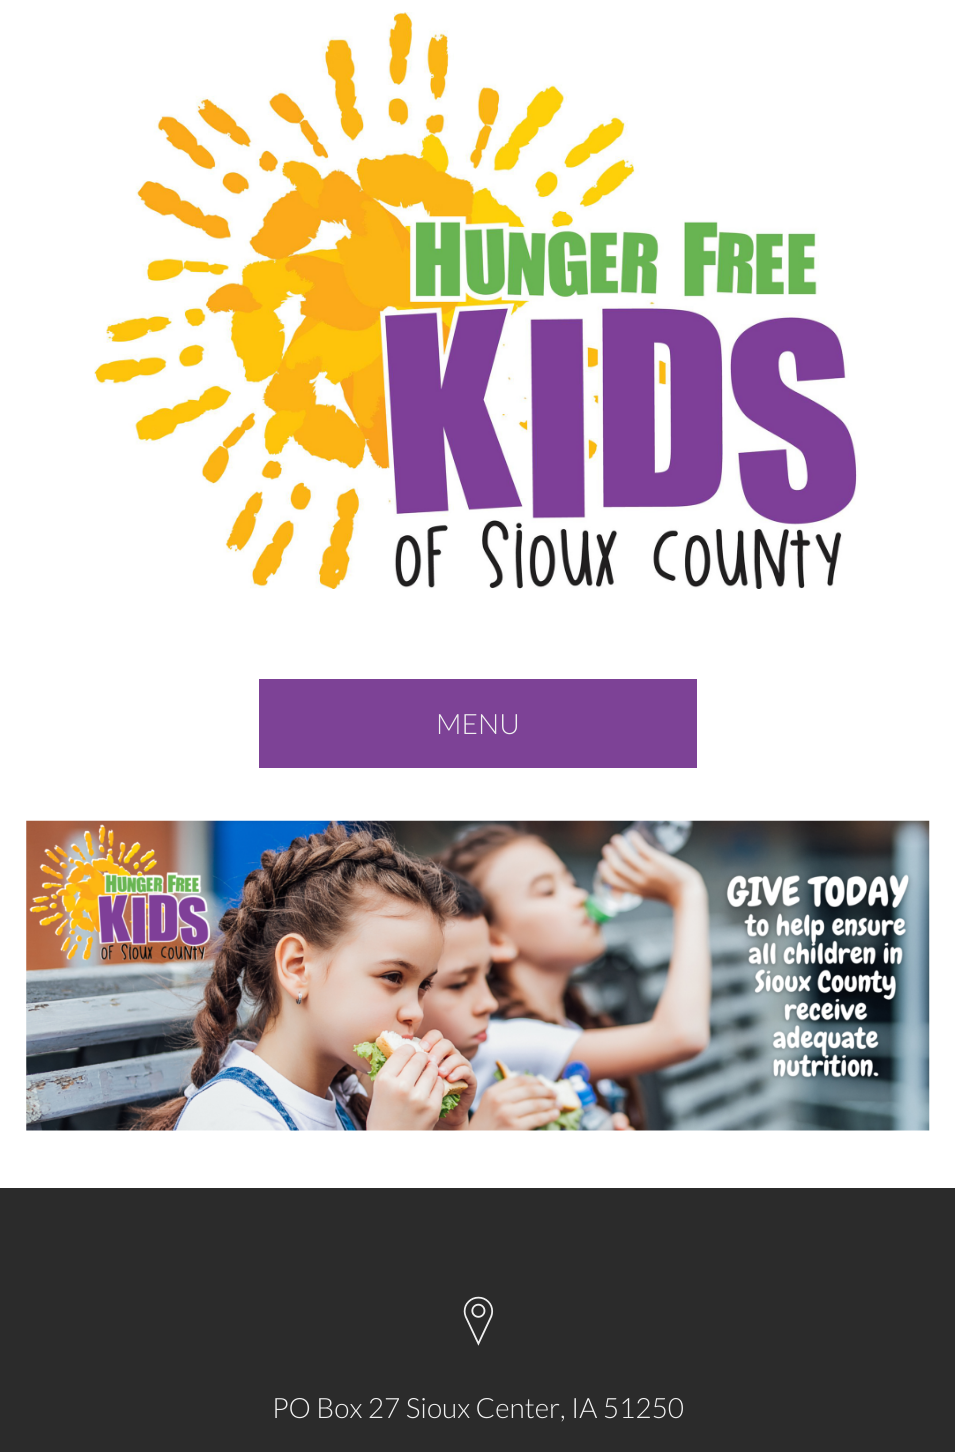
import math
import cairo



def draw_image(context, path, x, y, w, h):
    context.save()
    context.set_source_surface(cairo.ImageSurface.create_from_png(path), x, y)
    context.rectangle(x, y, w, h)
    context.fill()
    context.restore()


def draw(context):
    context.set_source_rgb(1, 1, 1)
    context.paint()
    draw_image(context, "images/1.png", 94, 12, 766, 577)
    context.set_source_rgb(125 / 255, 66 / 255, 150 / 255)
    context.rectangle(259, 679, 438, 89)
    context.fill()
    draw_image(context, "images/2.png", 26, 820, 904, 311)
    context.set_source_rgb(43 / 255, 43 / 255, 43 / 255)
    context.rectangle(0, 1188, 955, 264)
    context.fill()
    draw_image(context, "images/3.png", 463, 1296, 31, 50)
    context.select_font_face("Lato Light")
    context.set_font_size(28)
    context.set_source_rgb(240 / 255, 240 / 255, 240 / 255)
    context.move_to(436, 734)
    context.show_text("MENU")
    context.move_to(272, 1418)
    context.show_text("PO Box 27 Sioux Center, IA 51250")


surface = cairo.ImageSurface(cairo.Format.RGB24, 955, 1452)
context = cairo.Context(surface)
options = cairo.FontOptions()
options.set_hint_metrics(cairo.HintMetrics.OFF)
options.set_hint_style(cairo.HintStyle.NONE)
context.set_font_options(options)
context.set_miter_limit(4)
draw(context)
surface.write_to_png("out.png")
